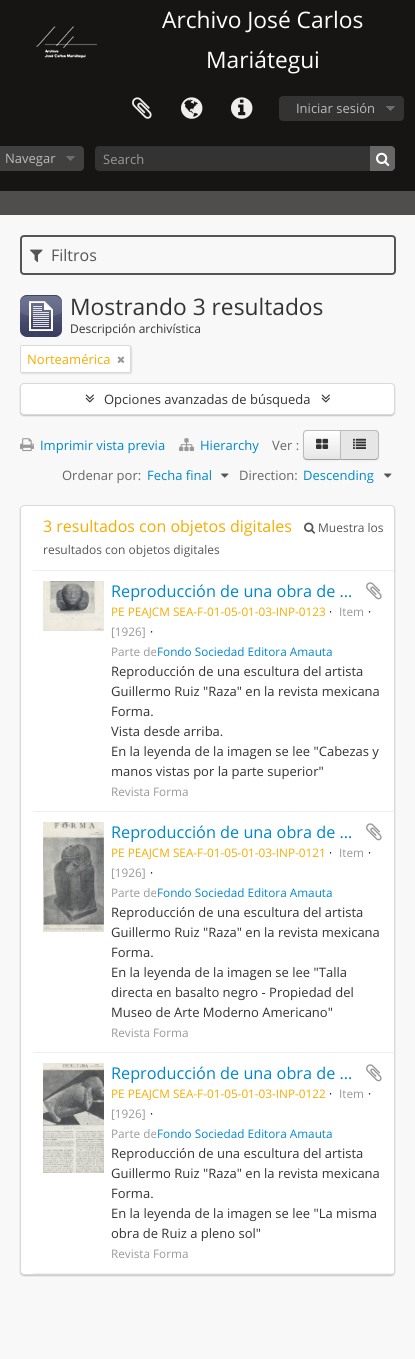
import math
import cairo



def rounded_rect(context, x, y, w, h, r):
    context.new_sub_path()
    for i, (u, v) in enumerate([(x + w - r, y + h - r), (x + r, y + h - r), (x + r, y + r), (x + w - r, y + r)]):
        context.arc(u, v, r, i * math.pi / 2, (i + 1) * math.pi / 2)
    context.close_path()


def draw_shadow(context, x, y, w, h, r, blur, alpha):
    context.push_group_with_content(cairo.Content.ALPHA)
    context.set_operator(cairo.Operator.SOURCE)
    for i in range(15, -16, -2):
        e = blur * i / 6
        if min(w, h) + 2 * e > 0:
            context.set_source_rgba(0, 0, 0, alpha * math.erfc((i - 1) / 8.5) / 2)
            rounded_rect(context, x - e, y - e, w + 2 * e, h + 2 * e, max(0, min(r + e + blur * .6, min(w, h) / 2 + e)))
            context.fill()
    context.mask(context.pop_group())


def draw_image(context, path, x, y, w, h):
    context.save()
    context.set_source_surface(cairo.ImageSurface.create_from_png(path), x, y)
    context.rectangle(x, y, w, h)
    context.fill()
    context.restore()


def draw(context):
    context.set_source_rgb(248 / 255, 248 / 255, 248 / 255)
    context.paint()
    context.set_source_rgb(22 / 255, 21 / 255, 20 / 255)
    context.rectangle(0, 0, 415, 191)
    context.fill()
    draw_image(context, "images/1.png", 36, 26, 61, 32)
    draw_image(context, "images/2.png", 132, 97, 20, 22)
    draw_image(context, "images/3.png", 181, 97, 22, 22)
    draw_image(context, "images/4.png", 231, 97, 22, 22)
    context.set_source_rgb(51 / 255, 51 / 255, 51 / 255)
    rounded_rect(context, 279, 96, 125, 25, 4)
    context.fill()
    draw_image(context, "images/5.png", 386, 106, 9, 5)
    context.set_source_rgb(64 / 255, 64 / 255, 64 / 255)
    rounded_rect(context, -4, 146, 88, 25, 4)
    context.fill()
    draw_image(context, "images/6.png", 66, 156, 9, 5)
    context.set_source_rgb(51 / 255, 51 / 255, 51 / 255)
    rounded_rect(context, 95, 146, 300, 25, 4)
    context.fill()
    context.set_source_rgba(0, 0, 0, 0.07)
    context.new_path()
    context.move_to(99, 147)
    context.line_to(393, 147)
    context.curve_to(394, 147, 395, 148, 395, 150)
    context.curve_to(395, 148, 393, 146, 391, 146)
    context.line_to(99, 146)
    context.curve_to(96, 146, 95, 148, 95, 150)
    context.curve_to(95, 148, 97, 147, 99, 147)
    context.close_path()
    context.fill()
    context.set_source_rgb(102 / 255, 102 / 255, 102 / 255)
    context.new_path()
    context.move_to(370, 146)
    context.line_to(391, 146)
    context.curve_to(393, 146, 395, 148, 395, 150)
    context.line_to(395, 167)
    context.curve_to(395, 169, 393, 171, 391, 171)
    context.line_to(370, 171)
    context.close_path()
    context.fill()
    draw_image(context, "images/7.png", 376, 152, 14, 14)
    context.set_source_rgb(79 / 255, 78 / 255, 77 / 255)
    context.rectangle(0, 191, 415, 24)
    context.fill()
    rounded_rect(context, 21, 236, 374, 38, 3)
    context.set_source_rgb(85 / 255, 85 / 255, 85 / 255)
    context.stroke()
    draw_image(context, "images/8.png", 30, 249, 13, 14)
    draw_image(context, "images/9.png", 20, 295, 42, 42)
    context.set_source_rgb(0, 0, 0)
    draw_shadow(context, 21, 346, 111, 28, 2, 0.5, 0.1)
    context.set_source_rgb(1, 1, 1)
    rounded_rect(context, 20.5, 345.5, 110, 27, 1.5)
    context.fill_preserve()
    context.set_source_rgb(217 / 255, 217 / 255, 217 / 255)
    context.set_line_width(1)
    context.stroke()
    draw_image(context, "images/10.png", 117, 356, 8, 7)
    context.set_source_rgb(0, 0, 0)
    draw_shadow(context, 20, 384, 375, 32, 4, 0.5, 0.2)
    context.set_source_rgb(1, 1, 1)
    rounded_rect(context, 20.5, 383.5, 374, 31, 3.5)
    context.fill_preserve()
    context.set_source_rgb(217 / 255, 217 / 255, 217 / 255)
    context.stroke()
    draw_image(context, "images/11.png", 85, 394, 9, 9)
    draw_image(context, "images/11.png", 321, 394, 9, 9)
    draw_image(context, "images/12.png", 20, 438, 14, 14)
    draw_image(context, "images/13.png", 179, 438, 15, 14)
    context.set_source_rgb(0, 0, 0)
    draw_shadow(context, 303, 431, 38, 30, 4, 1, 0.05)
    context.save()
    context.new_path()
    context.move_to(307, 430)
    context.line_to(341, 430)
    context.line_to(341, 460)
    context.line_to(307, 460)
    context.curve_to(305, 460, 303, 458, 303, 456)
    context.line_to(303, 434)
    context.curve_to(303, 432, 305, 430, 307, 430)
    context.close_path()
    context.clip()
    gradient = cairo.LinearGradient(322, 431, 322, 459)
    gradient.add_color_stop_rgba(0, 1, 1, 1, 1)
    gradient.add_color_stop_rgba(1, 230 / 255, 230 / 255, 230 / 255, 1)
    context.set_source(gradient)
    context.rectangle(303, 431, 37, 28)
    context.fill()
    context.restore()
    context.set_source_rgb(187 / 255, 187 / 255, 187 / 255)
    context.new_path()
    context.move_to(307, 430)
    context.curve_to(306, 430, 305, 430.5, 304, 431)
    context.line_to(305, 432)
    context.curve_to(305.5, 431.5, 306, 431, 307, 431)
    context.line_to(340, 431)
    context.line_to(341, 430)
    context.close_path()
    context.fill()
    context.set_source_rgb(162 / 255, 162 / 255, 162 / 255)
    context.new_path()
    context.move_to(341, 460)
    context.line_to(340, 459)
    context.line_to(307, 459)
    context.curve_to(306, 459, 305.5, 458.5, 305, 458)
    context.line_to(304, 459)
    context.curve_to(305, 459.5, 306, 460, 307, 460)
    context.close_path()
    context.fill()
    context.set_source_rgb(187 / 255, 187 / 255, 187 / 255)
    context.new_path()
    context.move_to(303, 434)
    context.line_to(303, 456)
    context.curve_to(303, 457, 303.5, 458, 304, 459)
    context.line_to(305, 458)
    context.curve_to(304.5, 457.5, 304, 457, 304, 456)
    context.line_to(304, 434)
    context.curve_to(304, 433, 304.5, 432.5, 305, 432)
    context.line_to(304, 431)
    context.curve_to(303.5, 432, 303, 433, 303, 434)
    context.close_path()
    context.fill()
    draw_image(context, "images/14.png", 316, 438, 13, 11)
    context.set_source_rgb(0, 0, 0)
    draw_shadow(context, 340, 431, 39, 30, 4, 1, 0.05)
    context.set_source_rgb(230 / 255, 230 / 255, 230 / 255)
    context.new_path()
    context.move_to(340, 430)
    context.line_to(375, 430)
    context.curve_to(377, 430, 379, 432, 379, 434)
    context.line_to(379, 456)
    context.curve_to(379, 458, 377, 460, 375, 460)
    context.line_to(340, 460)
    context.close_path()
    context.fill()
    context.set_source_rgb(187 / 255, 187 / 255, 187 / 255)
    context.new_path()
    context.move_to(340, 430)
    context.line_to(341, 431)
    context.line_to(375, 431)
    context.curve_to(376, 431, 376.5, 431.5, 377, 432)
    context.line_to(378, 431)
    context.curve_to(377, 430.5, 376, 430, 375, 430)
    context.close_path()
    context.fill()
    context.new_path()
    context.move_to(379, 456)
    context.line_to(379, 434)
    context.curve_to(379, 433, 378.5, 432, 378, 431)
    context.line_to(377, 432)
    context.curve_to(377.5, 432.5, 378, 433, 378, 434)
    context.line_to(378, 456)
    context.curve_to(378, 457, 377.5, 457.5, 377, 458)
    context.line_to(378, 459)
    context.curve_to(378.5, 458, 379, 457, 379, 456)
    context.close_path()
    context.fill()
    context.set_source_rgb(162 / 255, 162 / 255, 162 / 255)
    context.new_path()
    context.move_to(375, 460)
    context.curve_to(376, 460, 377, 459.5, 378, 459)
    context.line_to(377, 458)
    context.curve_to(376.5, 458.5, 376, 459, 375, 459)
    context.line_to(341, 459)
    context.line_to(340, 460)
    context.close_path()
    context.fill()
    context.set_source_rgb(187 / 255, 187 / 255, 187 / 255)
    context.new_path()
    context.move_to(340, 430)
    context.line_to(340, 460)
    context.line_to(341, 459)
    context.line_to(341, 431)
    context.close_path()
    context.fill()
    draw_image(context, "images/15.png", 353, 438, 13, 11)
    draw_image(context, "images/16.png", 221, 473, 8, 5)
    draw_image(context, "images/16.png", 384, 473, 8, 5)
    context.set_source_rgb(0, 0, 0)
    draw_shadow(context, 20, 506, 375, 770, 4, 0.5, 0.2)
    context.set_source_rgb(1, 1, 1)
    rounded_rect(context, 20.5, 505.5, 374, 769, 3.5)
    context.fill_preserve()
    context.set_source_rgb(217 / 255, 217 / 255, 217 / 255)
    context.stroke()
    context.set_source_rgb(238 / 255, 238 / 255, 238 / 255)
    context.rectangle(33, 570, 361, 1)
    context.fill()
    draw_image(context, "images/17.png", 304, 522, 12, 12)
    context.rectangle(33, 811, 361, 1)
    context.fill()
    draw_image(context, "images/18.png", 43, 581, 61, 50)
    draw_image(context, "images/19.png", 366, 582, 16, 18)
    context.rectangle(33, 1052, 361, 1)
    context.fill()
    draw_image(context, "images/20.png", 43, 822, 61, 110)
    draw_image(context, "images/19.png", 366, 823, 16, 18)
    context.rectangle(33, 1273, 361, 1)
    context.fill()
    draw_image(context, "images/21.png", 43, 1063, 61, 110)
    draw_image(context, "images/19.png", 366, 1064, 16, 18)
    context.select_font_face("Open Sans")
    context.set_font_size(22.75)
    context.set_source_rgb(1, 1, 1)
    context.move_to(162, 28)
    context.show_text("Archivo José Carlos")
    context.move_to(206, 68)
    context.show_text("Mariátegui")
    context.set_font_size(13)
    context.set_source_rgb(187 / 255, 187 / 255, 187 / 255)
    context.move_to(296, 113)
    context.show_text("Iniciar sesión")
    context.move_to(5, 163)
    context.show_text("Navegar")
    context.set_source_rgb(153 / 255, 153 / 255, 153 / 255)
    context.move_to(103, 164)
    context.show_text("Search")
    context.set_font_size(16)
    context.set_source_rgb(85 / 255, 85 / 255, 85 / 255)
    context.move_to(51, 261)
    context.show_text("Filtros")
    context.set_font_size(22.75)
    context.set_source_rgb(51 / 255, 51 / 255, 51 / 255)
    context.move_to(70, 315)
    context.show_text("Mostrando 3 resultados")
    context.set_font_size(12)
    context.move_to(70, 333)
    context.show_text("Descripción archivística")
    context.set_font_size(13)
    context.set_source_rgb(246 / 255, 172 / 255, 0)
    context.move_to(27, 364)
    context.show_text("Norteamérica")
    context.set_source_rgb(51 / 255, 51 / 255, 51 / 255)
    context.move_to(104, 404)
    context.show_text("Opciones avanzadas de búsqueda")
    context.set_source_rgb(0, 136 / 255, 204 / 255)
    context.move_to(40, 450)
    context.show_text("Imprimir vista previa")
    context.move_to(200, 450)
    context.show_text("Hierarchy")
    context.set_source_rgb(102 / 255, 102 / 255, 102 / 255)
    context.move_to(272, 450)
    context.show_text("Ver :")
    context.move_to(62, 480)
    context.show_text("Ordenar por:")
    context.set_source_rgb(0, 136 / 255, 204 / 255)
    context.move_to(147, 480)
    context.show_text("Fecha final")
    context.set_source_rgb(102 / 255, 102 / 255, 102 / 255)
    context.move_to(239, 480)
    context.show_text("Direction:")
    context.set_source_rgb(0, 136 / 255, 204 / 255)
    context.move_to(303, 480)
    context.show_text("Descending")
    context.set_font_size(16)
    context.set_source_rgb(246 / 255, 172 / 255, 0)
    context.move_to(43, 532)
    context.show_text("3 resultados con objetos digitales")
    context.set_font_size(12)
    context.set_source_rgb(85 / 255, 85 / 255, 85 / 255)
    context.move_to(318, 532)
    context.show_text("Muestra los")
    context.move_to(43, 554)
    context.show_text("resultados con objetos digitales")
    context.set_font_size(16.25)
    context.set_source_rgb(0, 136 / 255, 204 / 255)
    context.move_to(111, 597)
    context.show_text("Reproducción de una obra de …")
    context.set_font_size(11.75)
    context.set_source_rgb(246 / 255, 172 / 255, 0)
    context.move_to(111, 616)
    context.show_text("PE PEAJCM SEA-F-01-05-01-03-INP-0123")
    context.set_source_rgb(0, 0, 0)
    context.move_to(329, 616)
    context.show_text("·")
    context.set_source_rgb(153 / 255, 153 / 255, 153 / 255)
    context.move_to(339, 616)
    context.show_text("Item")
    context.set_source_rgb(0, 0, 0)
    context.move_to(368, 616)
    context.show_text("·")
    context.set_source_rgb(153 / 255, 153 / 255, 153 / 255)
    context.move_to(111, 636)
    context.show_text("[1926]")
    context.set_source_rgb(0, 0, 0)
    context.move_to(150, 636)
    context.show_text("·")
    context.set_source_rgb(153 / 255, 153 / 255, 153 / 255)
    context.move_to(111, 656)
    context.show_text("Parte de")
    context.set_source_rgb(0, 136 / 255, 204 / 255)
    context.move_to(157, 656)
    context.show_text("Fondo Sociedad Editora Amauta")
    context.set_font_size(13)
    context.set_source_rgb(51 / 255, 51 / 255, 51 / 255)
    context.move_to(111, 676)
    context.show_text("Reproducción de una escultura del artista")
    context.move_to(111, 696)
    context.show_text("Guillermo Ruiz \"Raza\" en la revista mexicana")
    context.move_to(111, 716)
    context.show_text("Forma.")
    context.move_to(111, 736)
    context.show_text("Vista desde arriba.")
    context.move_to(111, 756)
    context.show_text("En la leyenda de la imagen se lee \"Cabezas y")
    context.move_to(111, 776)
    context.show_text("manos vistas por la parte superior\"")
    context.set_font_size(11.75)
    context.set_source_rgb(153 / 255, 153 / 255, 153 / 255)
    context.move_to(111, 796)
    context.show_text("Revista Forma")
    context.set_font_size(16.25)
    context.set_source_rgb(0, 136 / 255, 204 / 255)
    context.move_to(111, 838)
    context.show_text("Reproducción de una obra de …")
    context.set_font_size(11.75)
    context.set_source_rgb(246 / 255, 172 / 255, 0)
    context.move_to(111, 857)
    context.show_text("PE PEAJCM SEA-F-01-05-01-03-INP-0121")
    context.set_source_rgb(0, 0, 0)
    context.move_to(329, 857)
    context.show_text("·")
    context.set_source_rgb(153 / 255, 153 / 255, 153 / 255)
    context.move_to(339, 857)
    context.show_text("Item")
    context.set_source_rgb(0, 0, 0)
    context.move_to(368, 857)
    context.show_text("·")
    context.set_source_rgb(153 / 255, 153 / 255, 153 / 255)
    context.move_to(111, 877)
    context.show_text("[1926]")
    context.set_source_rgb(0, 0, 0)
    context.move_to(150, 877)
    context.show_text("·")
    context.set_source_rgb(153 / 255, 153 / 255, 153 / 255)
    context.move_to(111, 897)
    context.show_text("Parte de")
    context.set_source_rgb(0, 136 / 255, 204 / 255)
    context.move_to(157, 897)
    context.show_text("Fondo Sociedad Editora Amauta")
    context.set_font_size(13)
    context.set_source_rgb(51 / 255, 51 / 255, 51 / 255)
    context.move_to(111, 917)
    context.show_text("Reproducción de una escultura del artista")
    context.move_to(111, 937)
    context.show_text("Guillermo Ruiz \"Raza\" en la revista mexicana")
    context.move_to(111, 957)
    context.show_text("Forma.")
    context.move_to(111, 977)
    context.show_text("En la leyenda de la imagen se lee \"Talla")
    context.move_to(111, 997)
    context.show_text("directa en basalto negro - Propiedad del")
    context.move_to(111, 1017)
    context.show_text("Museo de Arte Moderno Americano\"")
    context.set_font_size(11.75)
    context.set_source_rgb(153 / 255, 153 / 255, 153 / 255)
    context.move_to(111, 1037)
    context.show_text("Revista Forma")
    context.set_font_size(16.25)
    context.set_source_rgb(0, 136 / 255, 204 / 255)
    context.move_to(111, 1079)
    context.show_text("Reproducción de una obra de …")
    context.set_font_size(11.75)
    context.set_source_rgb(246 / 255, 172 / 255, 0)
    context.move_to(111, 1098)
    context.show_text("PE PEAJCM SEA-F-01-05-01-03-INP-0122")
    context.set_source_rgb(0, 0, 0)
    context.move_to(329, 1098)
    context.show_text("·")
    context.set_source_rgb(153 / 255, 153 / 255, 153 / 255)
    context.move_to(339, 1098)
    context.show_text("Item")
    context.set_source_rgb(0, 0, 0)
    context.move_to(368, 1098)
    context.show_text("·")
    context.set_source_rgb(153 / 255, 153 / 255, 153 / 255)
    context.move_to(111, 1118)
    context.show_text("[1926]")
    context.set_source_rgb(0, 0, 0)
    context.move_to(150, 1118)
    context.show_text("·")
    context.set_source_rgb(153 / 255, 153 / 255, 153 / 255)
    context.move_to(111, 1138)
    context.show_text("Parte de")
    context.set_source_rgb(0, 136 / 255, 204 / 255)
    context.move_to(157, 1138)
    context.show_text("Fondo Sociedad Editora Amauta")
    context.set_font_size(13)
    context.set_source_rgb(51 / 255, 51 / 255, 51 / 255)
    context.move_to(111, 1158)
    context.show_text("Reproducción de una escultura del artista")
    context.move_to(111, 1178)
    context.show_text("Guillermo Ruiz \"Raza\" en la revista mexicana")
    context.move_to(111, 1198)
    context.show_text("Forma.")
    context.move_to(111, 1218)
    context.show_text("En la leyenda de la imagen se lee \"La misma")
    context.move_to(111, 1238)
    context.show_text("obra de Ruiz a pleno sol\"")
    context.set_font_size(11.75)
    context.set_source_rgb(153 / 255, 153 / 255, 153 / 255)
    context.move_to(111, 1258)
    context.show_text("Revista Forma")


surface = cairo.ImageSurface(cairo.Format.RGB24, 415, 1359)
context = cairo.Context(surface)
options = cairo.FontOptions()
options.set_hint_metrics(cairo.HintMetrics.OFF)
options.set_hint_style(cairo.HintStyle.NONE)
context.set_font_options(options)
context.set_miter_limit(4)
draw(context)
surface.write_to_png("out.png")
